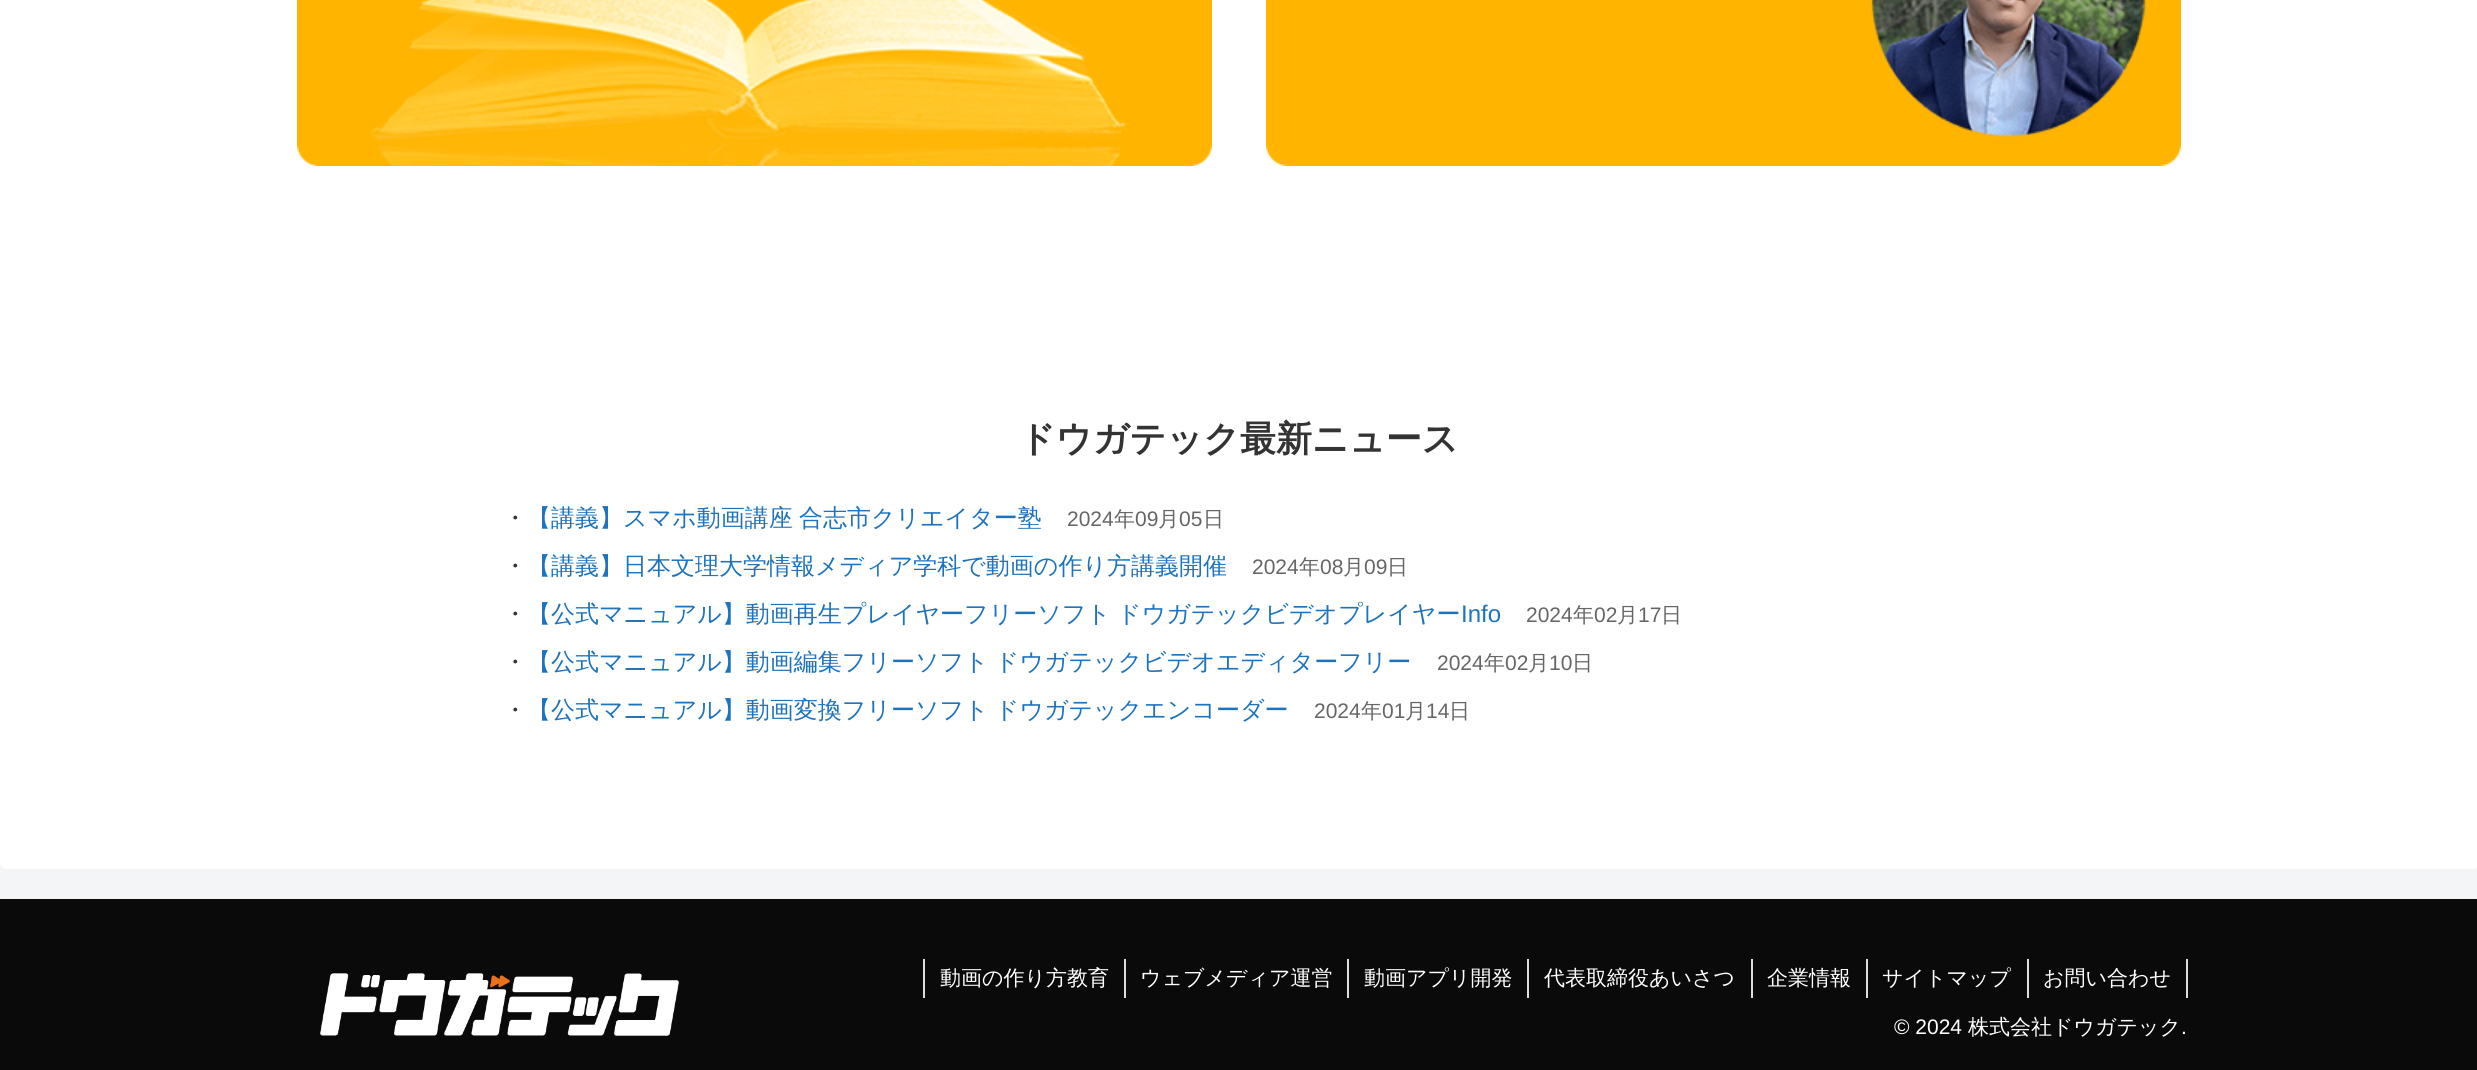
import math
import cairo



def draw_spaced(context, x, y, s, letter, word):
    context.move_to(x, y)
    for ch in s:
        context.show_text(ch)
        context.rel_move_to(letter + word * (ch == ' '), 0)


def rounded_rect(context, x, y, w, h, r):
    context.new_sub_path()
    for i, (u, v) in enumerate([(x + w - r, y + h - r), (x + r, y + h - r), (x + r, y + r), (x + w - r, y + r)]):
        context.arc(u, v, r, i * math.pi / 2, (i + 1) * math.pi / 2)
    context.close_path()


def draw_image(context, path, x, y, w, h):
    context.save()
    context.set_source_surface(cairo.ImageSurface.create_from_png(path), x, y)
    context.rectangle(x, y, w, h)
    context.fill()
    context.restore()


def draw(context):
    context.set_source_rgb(244 / 255, 245 / 255, 247 / 255)
    context.paint()
    context.set_source_rgb(1, 1, 1)
    rounded_rect(context, 0, -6, 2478, 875, 6)
    context.fill()
    draw_image(context, "images/1.png", 297, 0, 915, 166)
    draw_image(context, "images/2.png", 1266, 0, 915, 166)
    context.set_source_rgb(10 / 255, 10 / 255, 10 / 255)
    context.rectangle(0, 899, 2477, 171)
    context.fill()
    draw_image(context, "images/3.png", 320, 973, 359, 63)
    context.set_source_rgb(221 / 255, 221 / 255, 221 / 255)
    context.rectangle(923, 959, 2, 39)
    context.fill()
    context.rectangle(1124, 959, 2, 39)
    context.fill()
    context.rectangle(1347, 959, 2, 39)
    context.fill()
    context.rectangle(1527, 959, 2, 39)
    context.fill()
    context.rectangle(1751, 959, 2, 39)
    context.fill()
    context.rectangle(1866, 959, 2, 39)
    context.fill()
    context.rectangle(2186, 959, 2, 39)
    context.fill()
    context.rectangle(2027, 959, 2, 39)
    context.fill()
    context.select_font_face("WenQuanYi Zen Hei", cairo.FontSlant.NORMAL, cairo.FontWeight.BOLD)
    context.set_font_size(36)
    context.set_source_rgb(51 / 255, 51 / 255, 51 / 255)
    context.move_to(1019, 451)
    context.show_text("ドウガテック最新ニュース")
    context.select_font_face("WenQuanYi Zen Hei Medium")
    context.set_font_size(24)
    context.move_to(503, 526)
    context.show_text("・")
    context.set_source_rgb(30 / 255, 115 / 255, 190 / 255)
    draw_spaced(context, 527, 526, "【講義】スマホ動画講座 合志市クリエイター塾", 0, -1)
    context.select_font_face("Liberation Sans")
    context.set_font_size(21)
    context.set_source_rgb(102 / 255, 102 / 255, 102 / 255)
    context.move_to(1067, 526)
    context.show_text("2024")
    context.select_font_face("WenQuanYi Zen Hei Medium")
    context.move_to(1114, 526)
    context.show_text("年")
    context.select_font_face("Liberation Sans")
    context.move_to(1135, 526)
    context.show_text("09")
    context.select_font_face("WenQuanYi Zen Hei Medium")
    context.move_to(1158, 526)
    context.show_text("月")
    context.select_font_face("Liberation Sans")
    context.move_to(1179, 526)
    context.show_text("05")
    context.select_font_face("WenQuanYi Zen Hei Medium")
    context.move_to(1203, 526)
    context.show_text("日")
    context.set_font_size(24)
    context.set_source_rgb(51 / 255, 51 / 255, 51 / 255)
    context.move_to(503, 574)
    context.show_text("・")
    context.set_source_rgb(30 / 255, 115 / 255, 190 / 255)
    context.move_to(527, 574)
    context.show_text("【講義】日本文理大学情報メディア学科で動画の作り方講義開催")
    context.select_font_face("Liberation Sans")
    context.set_font_size(21)
    context.set_source_rgb(102 / 255, 102 / 255, 102 / 255)
    context.move_to(1252, 574)
    context.show_text("2024")
    context.select_font_face("WenQuanYi Zen Hei Medium")
    context.move_to(1299, 574)
    context.show_text("年")
    context.select_font_face("Liberation Sans")
    context.move_to(1320, 574)
    context.show_text("08")
    context.select_font_face("WenQuanYi Zen Hei Medium")
    context.move_to(1343, 574)
    context.show_text("月")
    context.select_font_face("Liberation Sans")
    context.move_to(1364, 574)
    context.show_text("09")
    context.select_font_face("WenQuanYi Zen Hei Medium")
    context.move_to(1387, 574)
    context.show_text("日")
    context.set_font_size(24)
    context.set_source_rgb(51 / 255, 51 / 255, 51 / 255)
    context.move_to(503, 622)
    context.show_text("・")
    context.set_source_rgb(30 / 255, 115 / 255, 190 / 255)
    draw_spaced(context, 527, 622, "【公式マニュアル】動画再生プレイヤーフリーソフト ドウガテックビデオプレイヤー", 0, -1)
    context.select_font_face("Liberation Sans")
    context.move_to(1461, 622)
    context.show_text("Info")
    context.set_font_size(21)
    context.set_source_rgb(102 / 255, 102 / 255, 102 / 255)
    context.move_to(1526, 622)
    context.show_text("2024")
    context.select_font_face("WenQuanYi Zen Hei Medium")
    context.move_to(1573, 622)
    context.show_text("年")
    context.select_font_face("Liberation Sans")
    context.move_to(1594, 622)
    context.show_text("02")
    context.select_font_face("WenQuanYi Zen Hei Medium")
    context.move_to(1617, 622)
    context.show_text("月")
    context.select_font_face("Liberation Sans")
    context.move_to(1638, 622)
    context.show_text("17")
    context.select_font_face("WenQuanYi Zen Hei Medium")
    context.move_to(1661, 622)
    context.show_text("日")
    context.set_font_size(24)
    context.set_source_rgb(51 / 255, 51 / 255, 51 / 255)
    context.move_to(503, 670)
    context.show_text("・")
    context.set_source_rgb(30 / 255, 115 / 255, 190 / 255)
    draw_spaced(context, 527, 670, "【公式マニュアル】動画編集フリーソフト ドウガテックビデオエディターフリー", 0, -1)
    context.select_font_face("Liberation Sans")
    context.set_font_size(21)
    context.set_source_rgb(102 / 255, 102 / 255, 102 / 255)
    context.move_to(1437, 670)
    context.show_text("2024")
    context.select_font_face("WenQuanYi Zen Hei Medium")
    context.move_to(1484, 670)
    context.show_text("年")
    context.select_font_face("Liberation Sans")
    context.move_to(1505, 670)
    context.show_text("02")
    context.select_font_face("WenQuanYi Zen Hei Medium")
    context.move_to(1528, 670)
    context.show_text("月")
    context.select_font_face("Liberation Sans")
    context.move_to(1549, 670)
    context.show_text("10")
    context.select_font_face("WenQuanYi Zen Hei Medium")
    context.move_to(1572, 670)
    context.show_text("日")
    context.set_font_size(24)
    context.set_source_rgb(51 / 255, 51 / 255, 51 / 255)
    context.move_to(503, 718)
    context.show_text("・")
    context.set_source_rgb(30 / 255, 115 / 255, 190 / 255)
    draw_spaced(context, 527, 718, "【公式マニュアル】動画変換フリーソフト ドウガテックエンコーダー", 0, -1)
    context.select_font_face("Liberation Sans")
    context.set_font_size(21)
    context.set_source_rgb(102 / 255, 102 / 255, 102 / 255)
    context.move_to(1314, 718)
    context.show_text("2024")
    context.select_font_face("WenQuanYi Zen Hei Medium")
    context.move_to(1361, 718)
    context.show_text("年")
    context.select_font_face("Liberation Sans")
    context.move_to(1382, 718)
    context.show_text("01")
    context.select_font_face("WenQuanYi Zen Hei Medium")
    context.move_to(1405, 718)
    context.show_text("月")
    context.select_font_face("Liberation Sans")
    context.move_to(1426, 718)
    context.show_text("14")
    context.select_font_face("WenQuanYi Zen Hei Medium")
    context.move_to(1449, 718)
    context.show_text("日")
    context.set_source_rgb(1, 1, 1)
    context.move_to(940, 985)
    context.show_text("動画の作り方教育")
    context.move_to(1140, 985)
    context.show_text("ウェブメディア運営")
    context.move_to(1364, 985)
    context.show_text("動画アプリ開発")
    context.move_to(1544, 985)
    context.show_text("代表取締役あいさつ")
    context.move_to(1767, 985)
    context.show_text("企業情報")
    context.move_to(1882, 985)
    context.show_text("サイトマップ")
    context.move_to(2043, 985)
    context.show_text("お問い合わせ")
    context.select_font_face("Liberation Sans")
    context.move_to(1894, 1034)
    context.show_text("© 2024")
    context.select_font_face("WenQuanYi Zen Hei Medium")
    context.move_to(1968, 1034)
    context.show_text("株式会社ドウガテック")
    context.select_font_face("Liberation Sans")
    context.move_to(2181, 1034)
    context.show_text(".")


surface = cairo.ImageSurface(cairo.Format.RGB24, 2477, 1070)
context = cairo.Context(surface)
options = cairo.FontOptions()
options.set_hint_metrics(cairo.HintMetrics.OFF)
options.set_hint_style(cairo.HintStyle.NONE)
context.set_font_options(options)
context.set_miter_limit(4)
draw(context)
surface.write_to_png("out.png")
